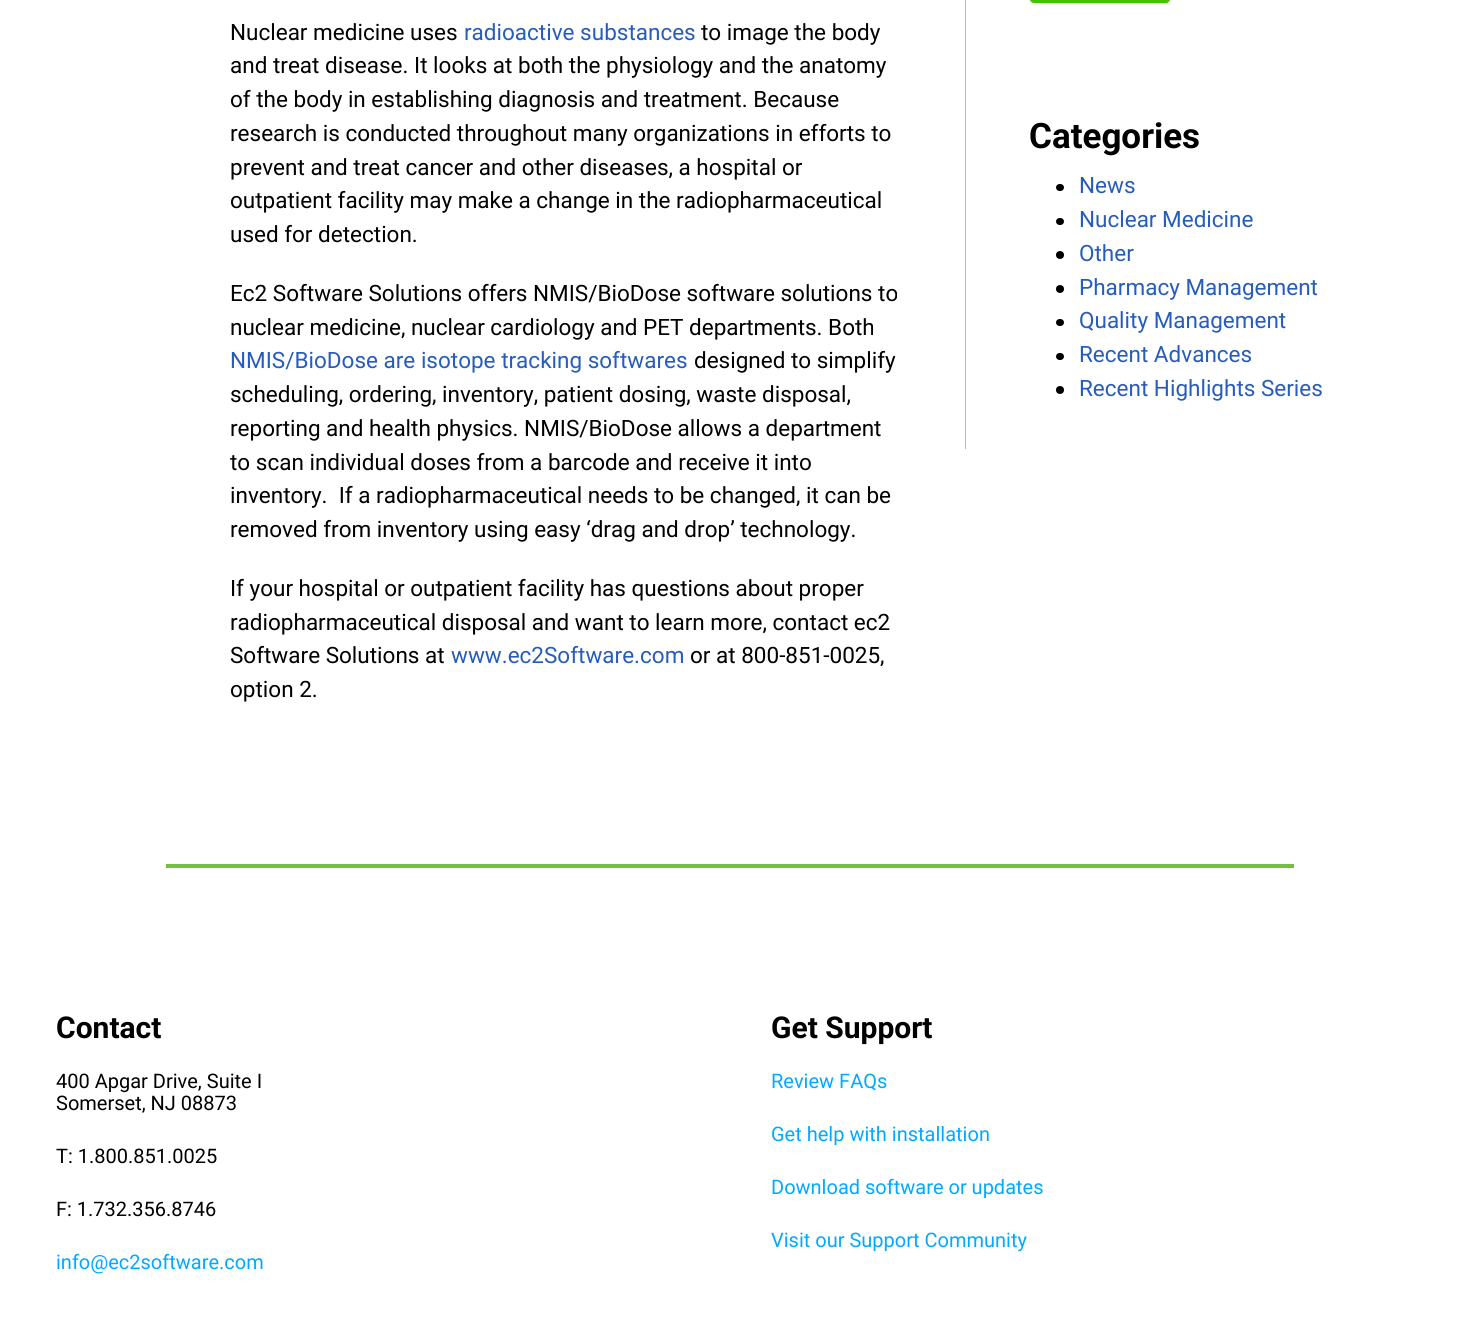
import math
import cairo



def rounded_rect(context, x, y, w, h, r):
    context.new_sub_path()
    for i, (u, v) in enumerate([(x + w - r, y + h - r), (x + r, y + h - r), (x + r, y + r), (x + w - r, y + r)]):
        context.arc(u, v, r, i * math.pi / 2, (i + 1) * math.pi / 2)
    context.close_path()


def draw(context):
    context.set_source_rgb(1, 1, 1)
    context.paint()
    context.set_source_rgb(66 / 255, 196 / 255, 0)
    rounded_rect(context, 1029.5, -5.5, 141, 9, 4.5)
    context.fill_preserve()
    context.set_source_rgb(242 / 255, 242 / 255, 242 / 255)
    context.set_line_width(1)
    context.stroke()
    context.set_source_rgb(187 / 255, 187 / 255, 187 / 255)
    context.rectangle(965, 0, 1, 449)
    context.fill()
    context.set_source_rgb(0, 0, 0)
    rounded_rect(context, 1056, 184, 8, 7, 3.5)
    context.fill()
    rounded_rect(context, 1056, 218, 8, 7, 3.5)
    context.fill()
    context.arc(1060, 255, 4, 0, 2 * math.pi)
    context.fill()
    context.arc(1060, 289, 4, 0, 2 * math.pi)
    context.fill()
    rounded_rect(context, 1056, 319, 8, 7, 3.5)
    context.fill()
    rounded_rect(context, 1056, 353, 8, 7, 3.5)
    context.fill()
    context.arc(1060, 390, 4, 0, 2 * math.pi)
    context.fill()
    context.set_source_rgb(114 / 255, 191 / 255, 67 / 255)
    context.rectangle(166, 864, 1128, 4)
    context.fill()
    context.select_font_face("Roboto")
    context.set_font_size(22.5)
    context.set_source_rgb(0, 0, 0)
    context.move_to(230, 40)
    context.show_text("Nuclear medicine uses")
    context.set_source_rgb(38 / 255, 92 / 255, 188 / 255)
    context.move_to(464, 40)
    context.show_text("radioactive substances")
    context.set_source_rgb(0, 0, 0)
    context.move_to(701, 40)
    context.show_text("to image the body")
    context.move_to(230, 73)
    context.show_text("and treat disease. It looks at both the physiology and the anatomy")
    context.move_to(230, 107)
    context.show_text("of the body in establishing diagnosis and treatment. Because")
    context.move_to(230, 141)
    context.show_text("research is conducted throughout many organizations in efforts to")
    context.move_to(230, 175)
    context.show_text("prevent and treat cancer and other diseases, a hospital or")
    context.move_to(230, 208)
    context.show_text("outpatient facility may make a change in the radiopharmaceutical")
    context.move_to(230, 242)
    context.show_text("used for detection.")
    context.move_to(230, 301)
    context.show_text("Ec2 Software Solutions offers NMIS/BioDose software solutions to")
    context.move_to(230, 335)
    context.show_text("nuclear medicine, nuclear cardiology and PET departments. Both")
    context.set_source_rgb(38 / 255, 92 / 255, 188 / 255)
    context.move_to(230, 368)
    context.show_text("NMIS/BioDose are isotope tracking softwares")
    context.set_source_rgb(0, 0, 0)
    context.move_to(694, 368)
    context.show_text("designed to simplify")
    context.move_to(230, 402)
    context.show_text("scheduling, ordering, inventory, patient dosing, waste disposal,")
    context.move_to(230, 436)
    context.show_text("reporting and health physics. NMIS/BioDose allows a department")
    context.move_to(230, 470)
    context.show_text("to scan individual doses from a barcode and receive it into")
    context.move_to(230, 503)
    context.show_text("inventory.  If a radiopharmaceutical needs to be changed, it can be")
    context.move_to(230, 537)
    context.show_text("removed from inventory using easy ‘drag and drop’ technology.")
    context.move_to(230, 596)
    context.show_text("If your hospital or outpatient facility has questions about proper")
    context.move_to(230, 630)
    context.show_text("radiopharmaceutical disposal and want to learn more, contact ec2")
    context.move_to(230, 663)
    context.show_text("Software Solutions at")
    context.set_source_rgb(38 / 255, 92 / 255, 188 / 255)
    context.move_to(451, 663)
    context.show_text("www.ec2Software.com")
    context.set_source_rgb(0, 0, 0)
    context.move_to(690, 663)
    context.show_text("or at 800-851-0025,")
    context.move_to(230, 697)
    context.show_text("option 2.")
    context.select_font_face("Roboto", cairo.FontSlant.NORMAL, cairo.FontWeight.BOLD)
    context.set_font_size(35)
    context.move_to(1029, 148)
    context.show_text("Categories")
    context.select_font_face("Roboto")
    context.set_font_size(22.5)
    context.set_source_rgb(38 / 255, 92 / 255, 188 / 255)
    context.move_to(1079, 193)
    context.show_text("News")
    context.move_to(1079, 227)
    context.show_text("Nuclear Medicine")
    context.move_to(1079, 261)
    context.show_text("Other")
    context.move_to(1079, 295)
    context.show_text("Pharmacy Management")
    context.move_to(1079, 328)
    context.show_text("Quality Management")
    context.move_to(1079, 362)
    context.show_text("Recent Advances")
    context.move_to(1079, 396)
    context.show_text("Recent Highlights Series")
    context.select_font_face("Roboto", cairo.FontSlant.NORMAL, cairo.FontWeight.BOLD)
    context.set_font_size(30)
    context.set_source_rgb(0, 0, 0)
    context.move_to(56, 1038)
    context.show_text("Contact")
    context.select_font_face("Roboto")
    context.set_font_size(20)
    context.move_to(56, 1088)
    context.show_text("400 Apgar Drive, Suite I")
    context.move_to(56, 1110)
    context.show_text("Somerset, NJ 08873")
    context.move_to(56, 1163)
    context.show_text("T: 1.800.851.0025")
    context.move_to(56, 1216)
    context.show_text("F: 1.732.356.8746")
    context.set_source_rgb(0, 170 / 255, 1)
    context.move_to(56, 1269)
    context.show_text("info@ec2software.com")
    context.select_font_face("Roboto", cairo.FontSlant.NORMAL, cairo.FontWeight.BOLD)
    context.set_font_size(30)
    context.set_source_rgb(0, 0, 0)
    context.move_to(771, 1038)
    context.show_text("Get Support")
    context.select_font_face("Roboto")
    context.set_font_size(20)
    context.set_source_rgb(0, 170 / 255, 1)
    context.move_to(771, 1088)
    context.show_text("Review FAQs")
    context.move_to(771, 1141)
    context.show_text("Get help with installation")
    context.move_to(771, 1194)
    context.show_text("Download software or updates")
    context.move_to(771, 1247)
    context.show_text("Visit our Support Community")


surface = cairo.ImageSurface(cairo.Format.RGB24, 1460, 1327)
context = cairo.Context(surface)
options = cairo.FontOptions()
options.set_hint_metrics(cairo.HintMetrics.OFF)
options.set_hint_style(cairo.HintStyle.NONE)
context.set_font_options(options)
context.set_miter_limit(4)
draw(context)
surface.write_to_png("out.png")
